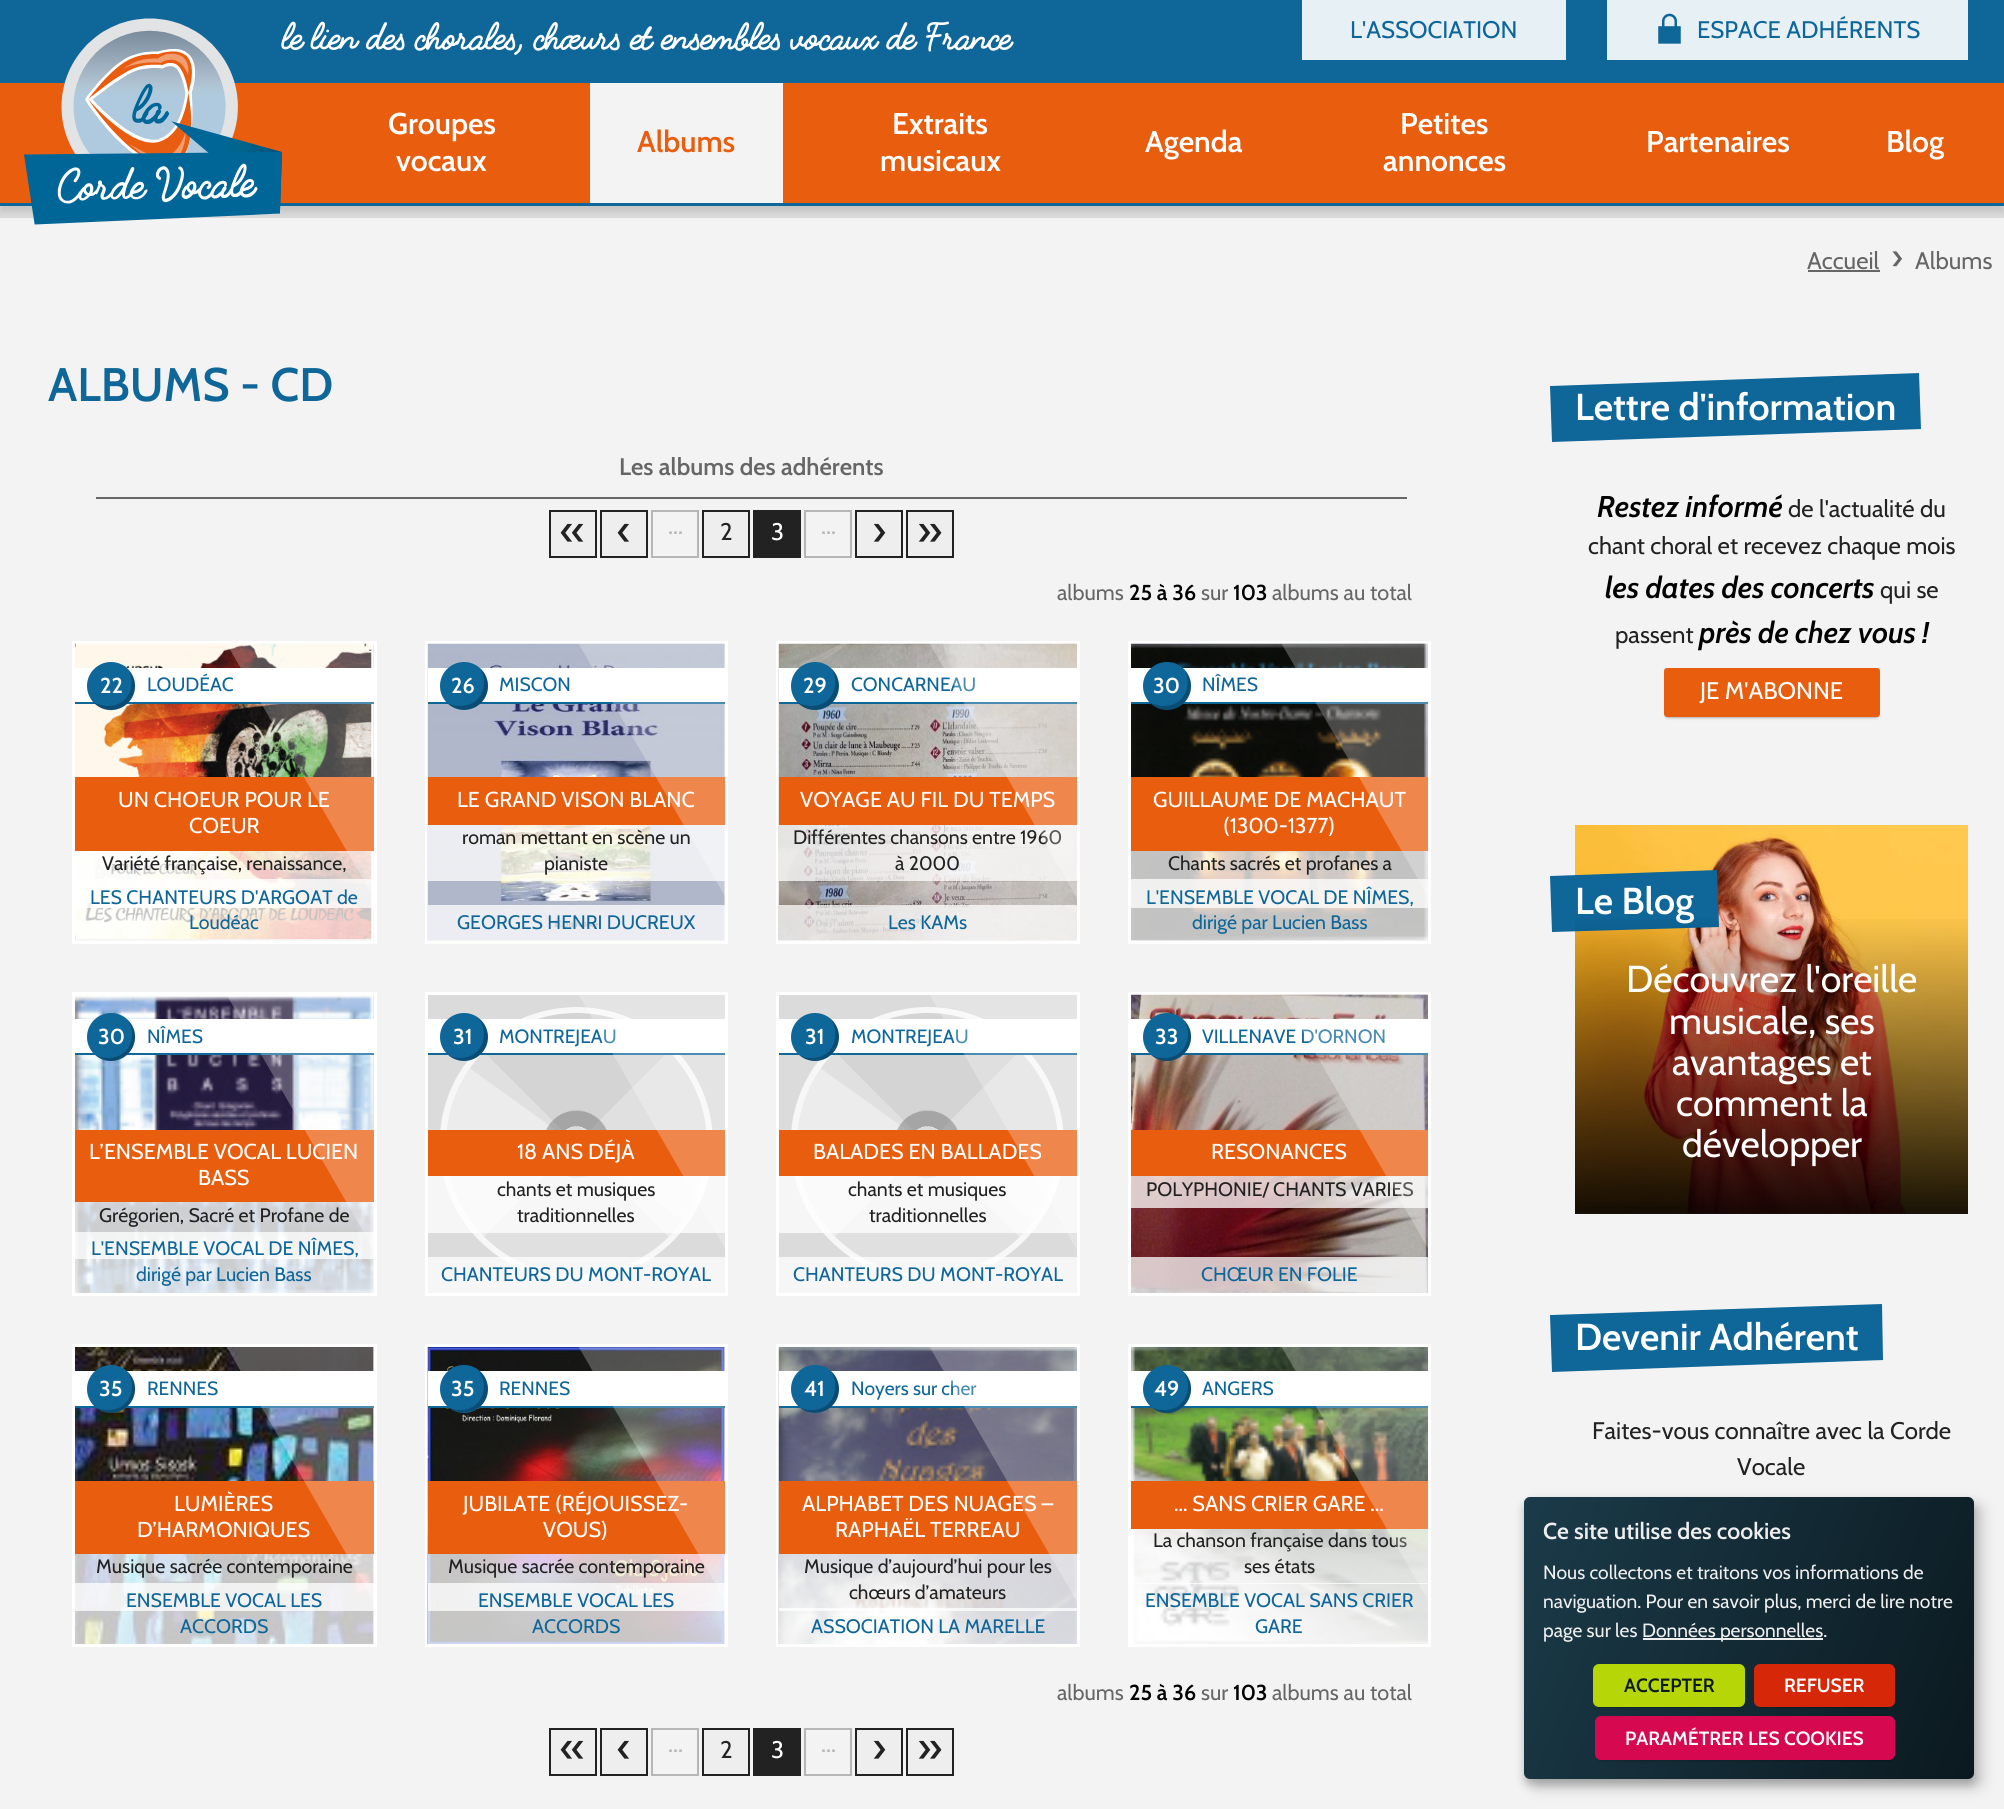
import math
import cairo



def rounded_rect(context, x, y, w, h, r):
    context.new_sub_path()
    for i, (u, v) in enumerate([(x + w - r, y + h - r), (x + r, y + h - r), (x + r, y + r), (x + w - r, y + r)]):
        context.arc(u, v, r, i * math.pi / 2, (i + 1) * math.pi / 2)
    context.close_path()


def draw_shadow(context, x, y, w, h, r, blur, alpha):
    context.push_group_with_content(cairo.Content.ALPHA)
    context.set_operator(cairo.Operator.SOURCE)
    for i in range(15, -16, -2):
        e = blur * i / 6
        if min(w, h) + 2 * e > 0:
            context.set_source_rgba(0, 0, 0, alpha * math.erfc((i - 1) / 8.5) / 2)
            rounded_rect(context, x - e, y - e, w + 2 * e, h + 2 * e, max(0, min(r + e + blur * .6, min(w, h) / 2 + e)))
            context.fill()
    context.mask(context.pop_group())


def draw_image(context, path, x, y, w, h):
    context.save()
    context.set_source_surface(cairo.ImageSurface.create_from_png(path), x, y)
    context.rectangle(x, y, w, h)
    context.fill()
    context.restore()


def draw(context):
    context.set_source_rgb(243 / 255, 243 / 255, 243 / 255)
    context.paint()
    context.set_source_rgb(219 / 255, 219 / 255, 219 / 255)
    context.rectangle(0, 206, 2004, 12)
    context.fill()
    context.set_source_rgb(14 / 255, 102 / 255, 153 / 255)
    context.rectangle(0, 0, 2004, 83)
    context.fill()
    context.set_source_rgb(231 / 255, 240 / 255, 245 / 255)
    context.rectangle(1302, 0, 264, 60)
    context.fill()
    context.rectangle(1607, 0, 361, 60)
    context.fill()
    draw_image(context, "images/1.png", 1658, 13, 23, 31)
    context.set_source_rgb(0, 0, 0)
    draw_shadow(context, 0, 89, 2004, 123, 0, 3, 0.1)
    context.set_source_rgb(233 / 255, 93 / 255, 15 / 255)
    context.rectangle(0, 83, 2004, 120)
    context.fill()
    context.set_source_rgb(14 / 255, 102 / 255, 153 / 255)
    context.rectangle(0, 203, 2004, 3)
    context.fill()
    draw_image(context, "images/2.png", 24, 18, 258, 207)
    context.set_source_rgb(243 / 255, 243 / 255, 243 / 255)
    context.rectangle(590, 83, 193, 120)
    context.fill()
    context.set_source_rgb(102 / 255, 102 / 255, 102 / 255)
    context.rectangle(1808, 270, 72, 2)
    context.fill()
    context.rectangle(96, 497, 1311, 2)
    context.fill()
    context.set_source_rgb(238 / 255, 238 / 255, 238 / 255)
    context.rectangle(550, 511, 46, 46)
    context.fill_preserve()
    context.set_source_rgb(34 / 255, 34 / 255, 34 / 255)
    context.stroke()
    context.set_source_rgb(238 / 255, 238 / 255, 238 / 255)
    context.rectangle(601, 511, 46, 46)
    context.fill_preserve()
    context.set_source_rgb(34 / 255, 34 / 255, 34 / 255)
    context.stroke()
    context.rectangle(652, 511, 46, 46)
    context.set_source_rgb(182 / 255, 182 / 255, 182 / 255)
    context.stroke()
    context.set_source_rgb(238 / 255, 238 / 255, 238 / 255)
    context.rectangle(703, 511, 46, 46)
    context.fill_preserve()
    context.set_source_rgb(34 / 255, 34 / 255, 34 / 255)
    context.stroke()
    context.rectangle(753, 510, 48, 48)
    context.fill()
    context.rectangle(805, 511, 46, 46)
    context.set_source_rgb(182 / 255, 182 / 255, 182 / 255)
    context.stroke()
    context.set_source_rgb(238 / 255, 238 / 255, 238 / 255)
    context.rectangle(856, 511, 46, 46)
    context.fill_preserve()
    context.set_source_rgb(34 / 255, 34 / 255, 34 / 255)
    context.stroke()
    context.set_source_rgb(238 / 255, 238 / 255, 238 / 255)
    context.rectangle(907, 511, 46, 46)
    context.fill_preserve()
    context.set_source_rgb(34 / 255, 34 / 255, 34 / 255)
    context.stroke()
    context.set_source_rgb(219 / 255, 219 / 255, 219 / 255)
    context.rectangle(73.5, 642.5, 302, 300)
    context.fill_preserve()
    context.set_source_rgb(1, 1, 1)
    context.set_line_width(3)
    context.stroke()
    draw_image(context, "images/3.png", 75, 643, 299, 298)
    context.rectangle(75, 668, 299, 34)
    context.fill()
    context.set_source_rgb(14 / 255, 102 / 255, 153 / 255)
    context.rectangle(75, 702, 299, 2)
    context.fill()
    context.arc(111, 686, 24, 0, 2 * math.pi)
    context.fill()
    context.set_source_rgba(0, 0, 0, 0.25)
    context.new_path()
    context.move_to(92, 701)
    context.curve_to(113, 726, 150, 695, 129, 671)
    context.curve_to(136, 685, 129, 706, 108, 706)
    context.curve_to(102, 706, 96, 704, 92, 701)
    context.close_path()
    context.fill()
    context.set_source_rgb(233 / 255, 93 / 255, 15 / 255)
    context.rectangle(75, 777, 299, 74)
    context.fill()
    context.set_source_rgba(1, 1, 1, 0.75)
    context.rectangle(75, 851, 299, 57)
    context.fill()
    context.rectangle(75, 879, 299, 62)
    context.fill()
    context.set_source_rgb(219 / 255, 219 / 255, 219 / 255)
    context.rectangle(426.5, 642.5, 300, 300)
    context.fill_preserve()
    context.set_source_rgb(1, 1, 1)
    context.stroke()
    draw_image(context, "images/4.png", 427, 643, 298, 298)
    context.rectangle(428, 668, 297, 34)
    context.fill()
    context.set_source_rgb(14 / 255, 102 / 255, 153 / 255)
    context.rectangle(428, 702, 297, 2)
    context.fill()
    context.arc(464, 686, 24, 0, 2 * math.pi)
    context.fill()
    context.set_source_rgba(0, 0, 0, 0.25)
    context.new_path()
    context.move_to(446, 702)
    context.curve_to(456, 712, 471, 712, 481, 703)
    context.curve_to(491, 693, 490, 677, 480, 668)
    context.curve_to(489, 682, 483, 706, 460, 706)
    context.curve_to(455, 706, 450, 705, 446, 702)
    context.close_path()
    context.fill()
    context.set_source_rgb(233 / 255, 93 / 255, 15 / 255)
    context.rectangle(428, 777, 297, 48)
    context.fill()
    context.set_source_rgba(1, 1, 1, 0.75)
    context.rectangle(428, 825, 297, 56)
    context.fill()
    context.rectangle(428, 905, 297, 36)
    context.fill()
    context.set_source_rgb(219 / 255, 219 / 255, 219 / 255)
    context.rectangle(779, 940, 298, 1)
    context.fill()
    context.rectangle(777.5, 642.5, 301, 300)
    context.set_source_rgb(1, 1, 1)
    context.stroke()
    draw_image(context, "images/5.png", 778, 643, 299, 298)
    context.rectangle(779, 668, 298, 34)
    context.fill()
    context.set_source_rgb(14 / 255, 102 / 255, 153 / 255)
    context.rectangle(779, 702, 298, 2)
    context.fill()
    context.arc(815, 686, 24, 0, 2 * math.pi)
    context.fill()
    context.set_source_rgba(0, 0, 0, 0.25)
    context.new_path()
    context.move_to(796, 701)
    context.curve_to(805, 712, 822, 713, 832, 703)
    context.curve_to(841, 694, 841, 678, 832, 669)
    context.curve_to(840, 683, 833, 706, 812, 706)
    context.curve_to(806, 706, 800, 704, 796, 701)
    context.close_path()
    context.fill()
    context.set_source_rgb(233 / 255, 93 / 255, 15 / 255)
    context.rectangle(779, 777, 298, 48)
    context.fill()
    context.set_source_rgba(1, 1, 1, 0.75)
    context.rectangle(779, 825, 298, 56)
    context.fill()
    context.rectangle(779, 905, 298, 36)
    context.fill()
    context.set_source_rgb(219 / 255, 219 / 255, 219 / 255)
    context.rectangle(1131, 940, 297, 1)
    context.fill()
    context.rectangle(1129.5, 642.5, 300, 300)
    context.set_source_rgb(1, 1, 1)
    context.stroke()
    draw_image(context, "images/6.png", 1131, 643, 297, 298)
    context.rectangle(1131, 668, 297, 34)
    context.fill()
    context.set_source_rgb(14 / 255, 102 / 255, 153 / 255)
    context.rectangle(1131, 702, 297, 2)
    context.fill()
    context.arc(1167, 686, 24, 0, 2 * math.pi)
    context.fill()
    context.set_source_rgba(0, 0, 0, 0.25)
    context.new_path()
    context.move_to(1148, 701)
    context.curve_to(1169, 726, 1206, 695, 1185, 671)
    context.curve_to(1192, 685, 1185, 706, 1164, 706)
    context.curve_to(1158, 706, 1152, 704, 1148, 701)
    context.close_path()
    context.fill()
    context.set_source_rgb(233 / 255, 93 / 255, 15 / 255)
    context.rectangle(1131, 777, 297, 74)
    context.fill()
    context.set_source_rgba(1, 1, 1, 0.75)
    context.rectangle(1131, 851, 297, 57)
    context.fill()
    context.rectangle(1131, 879, 297, 62)
    context.fill()
    context.set_source_rgb(219 / 255, 219 / 255, 219 / 255)
    context.rectangle(373, 995, 1, 298)
    context.fill()
    context.rectangle(73.5, 993.5, 302, 301)
    context.set_source_rgb(1, 1, 1)
    context.stroke()
    draw_image(context, "images/7.png", 75, 995, 299, 298)
    context.rectangle(75, 1019, 299, 34)
    context.fill()
    context.set_source_rgb(14 / 255, 102 / 255, 153 / 255)
    context.rectangle(75, 1053, 299, 2)
    context.fill()
    context.arc(111, 1037, 24, 0, 2 * math.pi)
    context.fill()
    context.set_source_rgba(0, 0, 0, 0.25)
    context.new_path()
    context.move_to(94, 1054)
    context.curve_to(117, 1076, 150, 1042, 128, 1020)
    context.curve_to(137, 1034, 131, 1058, 108, 1058)
    context.curve_to(102, 1058, 98, 1057, 94, 1054)
    context.close_path()
    context.fill()
    context.set_source_rgb(233 / 255, 93 / 255, 15 / 255)
    context.rectangle(75, 1130, 299, 72)
    context.fill()
    context.set_source_rgba(1, 1, 1, 0.75)
    context.rectangle(75, 1202, 299, 57)
    context.fill()
    context.rectangle(75, 1232, 299, 61)
    context.fill()
    context.set_source_rgb(219 / 255, 219 / 255, 219 / 255)
    context.rectangle(428, 995, 297, 298)
    context.fill()
    draw_image(context, "images/8.png", 440, 1007, 272, 274)
    rounded_rect(context, 443, 1010, 267, 268, 133.5)
    context.set_source_rgb(247 / 255, 247 / 255, 247 / 255)
    context.set_line_width(6)
    context.stroke()
    context.rectangle(426.5, 993.5, 300, 301)
    context.set_source_rgb(1, 1, 1)
    context.set_line_width(3)
    context.stroke()
    context.rectangle(428, 1019, 297, 34)
    context.fill()
    context.set_source_rgb(14 / 255, 102 / 255, 153 / 255)
    context.rectangle(428, 1053, 297, 2)
    context.fill()
    context.arc(464, 1037, 24, 0, 2 * math.pi)
    context.fill()
    context.set_source_rgba(0, 0, 0, 0.25)
    context.new_path()
    context.move_to(448, 1055)
    context.curve_to(459, 1064, 476, 1062, 484, 1050)
    context.curve_to(491, 1040, 488, 1025, 478, 1018)
    context.curve_to(490, 1031, 484, 1058, 460, 1058)
    context.curve_to(455, 1058, 452, 1057, 448, 1055)
    context.close_path()
    context.fill()
    context.set_source_rgb(233 / 255, 93 / 255, 15 / 255)
    context.rectangle(428, 1130, 297, 46)
    context.fill()
    context.set_source_rgba(1, 1, 1, 0.75)
    context.rectangle(428, 1176, 297, 57)
    context.fill()
    context.rectangle(428, 1257, 297, 36)
    context.fill()
    context.set_source_rgb(219 / 255, 219 / 255, 219 / 255)
    context.rectangle(779, 995, 298, 298)
    context.fill()
    draw_image(context, "images/9.png", 791, 1007, 272, 274)
    rounded_rect(context, 794, 1010, 267, 268, 133.5)
    context.set_source_rgb(247 / 255, 247 / 255, 247 / 255)
    context.set_line_width(6)
    context.stroke()
    context.rectangle(777.5, 993.5, 301, 301)
    context.set_source_rgb(1, 1, 1)
    context.set_line_width(3)
    context.stroke()
    context.rectangle(779, 1019, 298, 34)
    context.fill()
    context.set_source_rgb(14 / 255, 102 / 255, 153 / 255)
    context.rectangle(779, 1053, 298, 2)
    context.fill()
    context.arc(815, 1037, 24, 0, 2 * math.pi)
    context.fill()
    context.set_source_rgba(0, 0, 0, 0.25)
    context.new_path()
    context.move_to(798, 1054)
    context.curve_to(807, 1063, 823, 1063, 832, 1054)
    context.curve_to(842, 1044, 841, 1027, 830, 1018)
    context.curve_to(841, 1032, 835, 1058, 812, 1058)
    context.curve_to(806, 1058, 802, 1057, 798, 1054)
    context.close_path()
    context.fill()
    context.set_source_rgb(233 / 255, 93 / 255, 15 / 255)
    context.rectangle(779, 1130, 298, 46)
    context.fill()
    context.set_source_rgba(1, 1, 1, 0.75)
    context.rectangle(779, 1176, 298, 57)
    context.fill()
    context.rectangle(779, 1257, 298, 36)
    context.fill()
    context.rectangle(1129.5, 993.5, 300, 301)
    context.set_source_rgb(1, 1, 1)
    context.stroke()
    draw_image(context, "images/10.png", 1131, 994, 297, 299)
    context.rectangle(1131, 1019, 297, 34)
    context.fill()
    context.set_source_rgb(14 / 255, 102 / 255, 153 / 255)
    context.rectangle(1131, 1053, 297, 2)
    context.fill()
    context.arc(1167, 1037, 24, 0, 2 * math.pi)
    context.fill()
    context.set_source_rgba(0, 0, 0, 0.25)
    context.new_path()
    context.move_to(1150, 1054)
    context.curve_to(1173, 1076, 1206, 1042, 1184, 1020)
    context.curve_to(1193, 1034, 1187, 1058, 1164, 1058)
    context.curve_to(1158, 1058, 1154, 1057, 1150, 1054)
    context.close_path()
    context.fill()
    context.set_source_rgb(233 / 255, 93 / 255, 15 / 255)
    context.rectangle(1131, 1130, 297, 46)
    context.fill()
    context.set_source_rgba(1, 1, 1, 0.75)
    context.rectangle(1131, 1176, 297, 32)
    context.fill()
    context.rectangle(1131, 1257, 297, 36)
    context.fill()
    context.set_source_rgb(219 / 255, 219 / 255, 219 / 255)
    context.rectangle(373, 1347, 1, 297)
    context.fill()
    context.rectangle(73.5, 1345.5, 302, 300)
    context.set_source_rgb(1, 1, 1)
    context.stroke()
    draw_image(context, "images/11.png", 75, 1347, 299, 297)
    context.rectangle(75, 1371, 299, 35)
    context.fill()
    context.set_source_rgb(14 / 255, 102 / 255, 153 / 255)
    context.rectangle(75, 1406, 299, 2)
    context.fill()
    context.arc(111, 1389, 24, 0, 2 * math.pi)
    context.fill()
    context.set_source_rgba(0, 0, 0, 0.25)
    context.new_path()
    context.move_to(94, 1406)
    context.curve_to(117, 1428, 150, 1394, 128, 1372)
    context.curve_to(137, 1386, 131, 1410, 108, 1410)
    context.curve_to(102, 1410, 98, 1409, 94, 1406)
    context.close_path()
    context.fill()
    context.set_source_rgb(233 / 255, 93 / 255, 15 / 255)
    context.rectangle(75, 1481, 299, 73)
    context.fill()
    context.set_source_rgba(1, 1, 1, 0.75)
    context.rectangle(75, 1554, 299, 57)
    context.fill()
    context.rectangle(75, 1583, 299, 61)
    context.fill()
    context.set_source_rgb(219 / 255, 219 / 255, 219 / 255)
    context.rectangle(724, 1347, 1, 297)
    context.fill()
    context.rectangle(426.5, 1345.5, 300, 300)
    context.set_source_rgb(1, 1, 1)
    context.stroke()
    draw_image(context, "images/12.png", 427, 1347, 298, 297)
    context.rectangle(428, 1371, 297, 35)
    context.fill()
    context.set_source_rgb(14 / 255, 102 / 255, 153 / 255)
    context.rectangle(428, 1406, 297, 2)
    context.fill()
    context.arc(464, 1389, 24, 0, 2 * math.pi)
    context.fill()
    context.set_source_rgba(0, 0, 0, 0.25)
    context.new_path()
    context.move_to(448, 1407)
    context.curve_to(459, 1416, 476, 1414, 484, 1402)
    context.curve_to(491, 1392, 488, 1377, 478, 1370)
    context.curve_to(490, 1383, 484, 1410, 460, 1410)
    context.curve_to(455, 1410, 452, 1409, 448, 1407)
    context.close_path()
    context.fill()
    context.set_source_rgb(233 / 255, 93 / 255, 15 / 255)
    context.rectangle(428, 1481, 297, 73)
    context.fill()
    context.set_source_rgba(1, 1, 1, 0.75)
    context.rectangle(428, 1554, 297, 57)
    context.fill()
    context.rectangle(428, 1583, 297, 61)
    context.fill()
    context.rectangle(777.5, 1345.5, 301, 300)
    context.set_source_rgb(1, 1, 1)
    context.stroke()
    draw_image(context, "images/13.png", 778, 1347, 299, 297)
    context.rectangle(779, 1371, 298, 35)
    context.fill()
    context.set_source_rgb(14 / 255, 102 / 255, 153 / 255)
    context.rectangle(779, 1406, 298, 2)
    context.fill()
    context.arc(815, 1389, 24, 0, 2 * math.pi)
    context.fill()
    context.set_source_rgba(0, 0, 0, 0.25)
    context.new_path()
    context.move_to(798, 1406)
    context.curve_to(807, 1415, 823, 1415, 832, 1406)
    context.curve_to(842, 1396, 841, 1379, 830, 1370)
    context.curve_to(841, 1384, 835, 1410, 812, 1410)
    context.curve_to(806, 1410, 802, 1409, 798, 1406)
    context.close_path()
    context.fill()
    context.set_source_rgb(233 / 255, 93 / 255, 15 / 255)
    context.rectangle(779, 1481, 298, 73)
    context.fill()
    context.set_source_rgba(1, 1, 1, 0.75)
    context.rectangle(779, 1554, 298, 57)
    context.fill()
    context.rectangle(779, 1608, 298, 36)
    context.fill()
    context.rectangle(1129.5, 1345.5, 300, 300)
    context.set_source_rgb(1, 1, 1)
    context.stroke()
    draw_image(context, "images/14.png", 1131, 1347, 297, 297)
    context.rectangle(1131, 1371, 297, 35)
    context.fill()
    context.set_source_rgb(14 / 255, 102 / 255, 153 / 255)
    context.rectangle(1131, 1406, 297, 2)
    context.fill()
    context.arc(1167, 1389, 24, 0, 2 * math.pi)
    context.fill()
    context.set_source_rgba(0, 0, 0, 0.25)
    context.new_path()
    context.move_to(1150, 1406)
    context.curve_to(1173, 1428, 1206, 1394, 1184, 1372)
    context.curve_to(1193, 1386, 1187, 1410, 1164, 1410)
    context.curve_to(1158, 1410, 1154, 1409, 1150, 1406)
    context.close_path()
    context.fill()
    context.set_source_rgb(233 / 255, 93 / 255, 15 / 255)
    context.rectangle(1131, 1481, 297, 48)
    context.fill()
    context.set_source_rgba(1, 1, 1, 0.75)
    context.rectangle(1131, 1529, 297, 55)
    context.fill()
    context.rectangle(1131, 1583, 297, 61)
    context.fill()
    context.set_source_rgb(238 / 255, 238 / 255, 238 / 255)
    context.rectangle(550, 1729, 46, 46)
    context.fill_preserve()
    context.set_source_rgb(34 / 255, 34 / 255, 34 / 255)
    context.set_line_width(2)
    context.stroke()
    context.set_source_rgb(238 / 255, 238 / 255, 238 / 255)
    context.rectangle(601, 1729, 46, 46)
    context.fill_preserve()
    context.set_source_rgb(34 / 255, 34 / 255, 34 / 255)
    context.stroke()
    context.rectangle(652, 1729, 46, 46)
    context.set_source_rgb(182 / 255, 182 / 255, 182 / 255)
    context.stroke()
    context.set_source_rgb(238 / 255, 238 / 255, 238 / 255)
    context.rectangle(703, 1729, 46, 46)
    context.fill_preserve()
    context.set_source_rgb(34 / 255, 34 / 255, 34 / 255)
    context.stroke()
    context.rectangle(753, 1728, 48, 48)
    context.fill()
    context.rectangle(805, 1729, 46, 46)
    context.set_source_rgb(182 / 255, 182 / 255, 182 / 255)
    context.stroke()
    context.set_source_rgb(238 / 255, 238 / 255, 238 / 255)
    context.rectangle(856, 1729, 46, 46)
    context.fill_preserve()
    context.set_source_rgb(34 / 255, 34 / 255, 34 / 255)
    context.stroke()
    context.set_source_rgb(238 / 255, 238 / 255, 238 / 255)
    context.rectangle(907, 1729, 46, 46)
    context.fill_preserve()
    context.set_source_rgb(34 / 255, 34 / 255, 34 / 255)
    context.stroke()
    context.set_source_rgb(14 / 255, 102 / 255, 153 / 255)
    context.new_path()
    context.move_to(1550, 386)
    context.line_to(1919, 373)
    context.line_to(1921, 429)
    context.line_to(1552, 442)
    context.close_path()
    context.fill()
    context.set_source_rgb(0, 0, 0)
    draw_shadow(context, 1667, 674, 210, 43, 0, 1.5, 0.5)
    context.set_source_rgb(233 / 255, 93 / 255, 15 / 255)
    rounded_rect(context, 1664, 668, 216, 49, 3)
    context.fill()
    draw_image(context, "images/15.png", 1575, 825, 393, 389)
    context.set_source_rgb(14 / 255, 102 / 255, 153 / 255)
    context.new_path()
    context.move_to(1550, 876)
    context.line_to(1717, 870)
    context.line_to(1719, 927)
    context.line_to(1552, 932)
    context.close_path()
    context.fill()
    context.new_path()
    context.move_to(1550, 1315)
    context.line_to(1882, 1304)
    context.line_to(1883, 1360)
    context.line_to(1552, 1372)
    context.close_path()
    context.fill()
    context.set_source_rgb(0, 0, 0)
    draw_shadow(context, 1532, 1505, 450, 282, 6, 7.5, 0.19)
    draw_shadow(context, 1524, 1503, 450, 282, 6, 4.5, 0.2)
    gradient = cairo.LinearGradient(1507, 1538, 1991, 1738)
    gradient.add_color_stop_rgba(0, 27 / 255, 59 / 255, 74 / 255, 1)
    gradient.add_color_stop_rgba(1, 11 / 255, 25 / 255, 31 / 255, 1)
    context.set_source(gradient)
    rounded_rect(context, 1524, 1497, 450, 282, 6)
    context.fill()
    context.set_source_rgb(238 / 255, 238 / 255, 238 / 255)
    context.rectangle(1643, 1638, 180, 2)
    context.fill()
    context.set_source_rgb(0, 0, 0)
    draw_shadow(context, 1596, 1670, 146, 37, 3, 1.5, 0.5)
    context.set_source_rgb(182 / 255, 214 / 255, 8 / 255)
    rounded_rect(context, 1593, 1664, 152, 43, 6)
    context.fill()
    context.set_source_rgb(0, 0, 0)
    draw_shadow(context, 1757, 1670, 135, 37, 3, 1.5, 0.5)
    context.set_source_rgb(214 / 255, 40 / 255, 8 / 255)
    rounded_rect(context, 1754, 1664, 141, 43, 6)
    context.fill()
    context.set_source_rgb(0, 0, 0)
    draw_shadow(context, 1598, 1722, 294, 38, 3, 1.5, 0.5)
    context.set_source_rgb(214 / 255, 8 / 255, 79 / 255)
    rounded_rect(context, 1595, 1716, 300, 44, 6)
    context.fill()
    context.select_font_face("Cabin")
    context.set_font_size(24)
    context.set_source_rgb(14 / 255, 102 / 255, 153 / 255)
    context.move_to(1350, 38)
    context.show_text("L'ASSOCIATION")
    context.move_to(1697, 38)
    context.show_text("ESPACE ADHÉRENTS")
    context.select_font_face("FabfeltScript", cairo.FontSlant.NORMAL, cairo.FontWeight.BOLD)
    context.set_font_size(36)
    context.set_source_rgb(1, 1, 1)
    context.move_to(282, 48)
    context.show_text("le lien des chorales, chœurs et ensembles vocaux de France")
    context.select_font_face("Cabin SemiBold")
    context.set_font_size(30)
    context.move_to(388, 134)
    context.show_text("Groupes")
    context.move_to(396, 171)
    context.show_text("vocaux")
    context.set_source_rgb(233 / 255, 93 / 255, 15 / 255)
    context.move_to(637, 152)
    context.show_text("Albums")
    context.set_source_rgb(1, 1, 1)
    context.move_to(892, 134)
    context.show_text("Extraits")
    context.move_to(880, 171)
    context.show_text("musicaux")
    context.move_to(1145, 152)
    context.show_text("Agenda")
    context.move_to(1400, 134)
    context.show_text("Petites")
    context.move_to(1383, 171)
    context.show_text("annonces")
    context.move_to(1646, 152)
    context.show_text("Partenaires")
    context.move_to(1886, 152)
    context.show_text("Blog")
    context.select_font_face("Cabin")
    context.set_font_size(24)
    context.set_source_rgb(102 / 255, 102 / 255, 102 / 255)
    context.move_to(1807, 269)
    context.show_text("Accueil")
    context.set_font_size(36)
    context.move_to(1891, 269)
    context.show_text("›")
    context.set_font_size(24)
    context.move_to(1915, 269)
    context.show_text("Albums")
    context.select_font_face("Cabin SemiBold")
    context.set_font_size(47)
    context.set_source_rgb(14 / 255, 102 / 255, 153 / 255)
    context.move_to(48, 401)
    context.show_text("ALBUMS - CD")
    context.set_font_size(24)
    context.set_source_rgb(102 / 255, 102 / 255, 102 / 255)
    context.move_to(619, 475)
    context.show_text("Les albums des adhérents")
    context.select_font_face("Cabin")
    context.set_font_size(43)
    context.set_source_rgb(34 / 255, 34 / 255, 34 / 255)
    context.move_to(560, 545)
    context.show_text("«")
    context.move_to(617, 545)
    context.show_text("‹")
    context.set_font_size(24)
    context.set_source_rgb(182 / 255, 182 / 255, 182 / 255)
    context.move_to(668, 534)
    context.show_text("...")
    context.set_source_rgb(34 / 255, 34 / 255, 34 / 255)
    context.move_to(720, 540)
    context.show_text("2")
    context.set_source_rgb(1, 1, 1)
    context.move_to(771, 540)
    context.show_text("3")
    context.set_source_rgb(182 / 255, 182 / 255, 182 / 255)
    context.move_to(821, 534)
    context.show_text("...")
    context.set_font_size(43)
    context.set_source_rgb(34 / 255, 34 / 255, 34 / 255)
    context.move_to(872, 545)
    context.show_text("›")
    context.move_to(917, 545)
    context.show_text("»")
    context.set_font_size(21.6)
    context.set_source_rgb(102 / 255, 102 / 255, 102 / 255)
    context.move_to(1057, 600)
    context.show_text("albums")
    context.select_font_face("Cabin SemiBold")
    context.set_source_rgb(0, 0, 0)
    context.move_to(1129, 600)
    context.show_text("25 à 36")
    context.select_font_face("Cabin")
    context.set_source_rgb(102 / 255, 102 / 255, 102 / 255)
    context.move_to(1201, 600)
    context.show_text("sur")
    context.select_font_face("Cabin SemiBold")
    context.set_source_rgb(0, 0, 0)
    context.move_to(1233, 600)
    context.show_text("103")
    context.select_font_face("Cabin")
    context.set_source_rgb(102 / 255, 102 / 255, 102 / 255)
    context.move_to(1272, 600)
    context.show_text("albums au total")
    context.select_font_face("Cabin SemiBold")
    context.set_source_rgb(1, 1, 1)
    context.move_to(100, 693)
    context.show_text("22")
    context.select_font_face("Cabin")
    context.set_font_size(19.2)
    context.set_source_rgb(14 / 255, 102 / 255, 153 / 255)
    context.move_to(147, 691)
    context.show_text("LOUDÉAC")
    context.set_font_size(21.6)
    context.set_source_rgb(1, 1, 1)
    context.move_to(118, 807)
    context.show_text("UN CHOEUR POUR LE")
    context.move_to(189, 833)
    context.show_text("COEUR")
    context.set_font_size(19.5)
    context.set_source_rgb(34 / 255, 34 / 255, 34 / 255)
    context.move_to(102, 870)
    context.show_text("Variété française, renaissance,")
    context.set_source_rgb(14 / 255, 102 / 255, 153 / 255)
    context.move_to(90, 904)
    context.show_text("LES CHANTEURS D'ARGOAT de")
    context.save()
    context.rectangle(75, 644, 299, 297)
    context.clip()
    context.set_source_rgba(1, 1, 1, 0.25)
    context.new_path()
    context.move_to(225, 641)
    context.line_to(354, 566)
    context.line_to(503, 824)
    context.line_to(374, 898)
    context.close_path()
    context.fill()
    context.restore()
    context.move_to(189, 929)
    context.show_text("Loudéac")
    context.select_font_face("Cabin SemiBold")
    context.set_font_size(21.6)
    context.set_source_rgb(1, 1, 1)
    context.move_to(451, 693)
    context.show_text("26")
    context.select_font_face("Cabin")
    context.set_font_size(19.2)
    context.set_source_rgb(14 / 255, 102 / 255, 153 / 255)
    context.move_to(499, 691)
    context.show_text("MISCON")
    context.set_font_size(21.6)
    context.set_source_rgb(1, 1, 1)
    context.move_to(457, 807)
    context.show_text("LE GRAND VISON BLANC")
    context.set_font_size(19.5)
    context.set_source_rgb(34 / 255, 34 / 255, 34 / 255)
    context.move_to(462, 844)
    context.show_text("roman mettant en scène un")
    context.move_to(544, 870)
    context.show_text("pianiste")
    context.save()
    context.rectangle(428, 644, 297, 297)
    context.clip()
    context.set_source_rgba(1, 1, 1, 0.25)
    context.new_path()
    context.move_to(577, 641)
    context.line_to(706, 566)
    context.line_to(854, 824)
    context.line_to(726, 898)
    context.close_path()
    context.fill()
    context.restore()
    context.set_source_rgb(14 / 255, 102 / 255, 153 / 255)
    context.move_to(457, 929)
    context.show_text("GEORGES HENRI DUCREUX")
    context.select_font_face("Cabin SemiBold")
    context.set_font_size(21.6)
    context.set_source_rgb(1, 1, 1)
    context.move_to(803, 693)
    context.show_text("29")
    context.select_font_face("Cabin")
    context.set_font_size(19.2)
    context.set_source_rgb(14 / 255, 102 / 255, 153 / 255)
    context.move_to(851, 691)
    context.show_text("CONCARNEAU")
    context.set_font_size(21.6)
    context.set_source_rgb(1, 1, 1)
    context.move_to(800, 807)
    context.show_text("VOYAGE AU FIL DU TEMPS")
    context.set_font_size(19.5)
    context.set_source_rgb(34 / 255, 34 / 255, 34 / 255)
    context.move_to(793, 844)
    context.show_text("Différentes chansons entre 1960")
    context.move_to(895, 870)
    context.show_text("à 2000")
    context.save()
    context.rectangle(779, 644, 298, 297)
    context.clip()
    context.set_source_rgba(1, 1, 1, 0.25)
    context.new_path()
    context.move_to(928, 641)
    context.line_to(1057, 566)
    context.line_to(1206, 824)
    context.line_to(1077, 898)
    context.close_path()
    context.fill()
    context.restore()
    context.set_source_rgb(14 / 255, 102 / 255, 153 / 255)
    context.move_to(888, 929)
    context.show_text("Les KAMs")
    context.select_font_face("Cabin SemiBold")
    context.set_font_size(21.6)
    context.set_source_rgb(1, 1, 1)
    context.move_to(1153, 693)
    context.show_text("30")
    context.select_font_face("Cabin")
    context.set_font_size(19.2)
    context.set_source_rgb(14 / 255, 102 / 255, 153 / 255)
    context.move_to(1202, 691)
    context.show_text("NÎMES")
    context.set_font_size(21.6)
    context.set_source_rgb(1, 1, 1)
    context.move_to(1153, 807)
    context.show_text("GUILLAUME DE MACHAUT")
    context.move_to(1223, 833)
    context.show_text("(1300-1377)")
    context.set_font_size(19.5)
    context.set_source_rgb(34 / 255, 34 / 255, 34 / 255)
    context.move_to(1168, 870)
    context.show_text("Chants sacrés et profanes a")
    context.set_source_rgb(14 / 255, 102 / 255, 153 / 255)
    context.move_to(1146, 904)
    context.show_text("L'ENSEMBLE VOCAL DE NÎMES,")
    context.save()
    context.rectangle(1131, 644, 297, 297)
    context.clip()
    context.set_source_rgba(1, 1, 1, 0.25)
    context.new_path()
    context.move_to(1280, 641)
    context.line_to(1409, 566)
    context.line_to(1558, 824)
    context.line_to(1429, 898)
    context.close_path()
    context.fill()
    context.restore()
    context.move_to(1192, 929)
    context.show_text("dirigé par Lucien Bass")
    context.select_font_face("Cabin SemiBold")
    context.set_font_size(21.6)
    context.set_source_rgb(1, 1, 1)
    context.move_to(98, 1044)
    context.show_text("30")
    context.select_font_face("Cabin")
    context.set_font_size(19.2)
    context.set_source_rgb(14 / 255, 102 / 255, 153 / 255)
    context.move_to(147, 1043)
    context.show_text("NÎMES")
    context.set_font_size(21.6)
    context.set_source_rgb(1, 1, 1)
    context.move_to(89, 1159)
    context.show_text("L’ENSEMBLE VOCAL LUCIEN")
    context.move_to(198, 1185)
    context.show_text("BASS")
    context.set_font_size(19.5)
    context.set_source_rgb(34 / 255, 34 / 255, 34 / 255)
    context.move_to(99, 1222)
    context.show_text("Grégorien, Sacré et Profane de")
    context.set_source_rgb(14 / 255, 102 / 255, 153 / 255)
    context.move_to(91, 1255)
    context.show_text("L'ENSEMBLE VOCAL DE NÎMES,")
    context.save()
    context.rectangle(75, 995, 299, 298)
    context.clip()
    context.set_source_rgba(1, 1, 1, 0.25)
    context.new_path()
    context.move_to(225, 992)
    context.line_to(354, 918)
    context.line_to(503, 1176)
    context.line_to(374, 1250)
    context.close_path()
    context.fill()
    context.restore()
    context.move_to(136, 1281)
    context.show_text("dirigé par Lucien Bass")
    context.select_font_face("Cabin SemiBold")
    context.set_font_size(21.6)
    context.set_source_rgb(1, 1, 1)
    context.move_to(453, 1044)
    context.show_text("31")
    context.select_font_face("Cabin")
    context.set_font_size(19.2)
    context.set_source_rgb(14 / 255, 102 / 255, 153 / 255)
    context.move_to(499, 1043)
    context.show_text("MONTREJEAU")
    context.set_font_size(21.6)
    context.set_source_rgb(1, 1, 1)
    context.move_to(517, 1159)
    context.show_text("18 ANS DÉJÀ")
    context.set_font_size(19.5)
    context.set_source_rgb(34 / 255, 34 / 255, 34 / 255)
    context.move_to(497, 1196)
    context.show_text("chants et musiques")
    context.move_to(517, 1222)
    context.show_text("traditionnelles")
    context.save()
    context.rectangle(428, 995, 297, 298)
    context.clip()
    context.set_source_rgba(1, 1, 1, 0.25)
    context.new_path()
    context.move_to(577, 992)
    context.line_to(706, 918)
    context.line_to(854, 1176)
    context.line_to(726, 1250)
    context.close_path()
    context.fill()
    context.restore()
    context.set_source_rgb(14 / 255, 102 / 255, 153 / 255)
    context.move_to(441, 1281)
    context.show_text("CHANTEURS DU MONT-ROYAL")
    context.select_font_face("Cabin SemiBold")
    context.set_font_size(21.6)
    context.set_source_rgb(1, 1, 1)
    context.move_to(805, 1044)
    context.show_text("31")
    context.select_font_face("Cabin")
    context.set_font_size(19.2)
    context.set_source_rgb(14 / 255, 102 / 255, 153 / 255)
    context.move_to(851, 1043)
    context.show_text("MONTREJEAU")
    context.set_font_size(21.6)
    context.set_source_rgb(1, 1, 1)
    context.move_to(813, 1159)
    context.show_text("BALADES EN BALLADES")
    context.set_font_size(19.5)
    context.set_source_rgb(34 / 255, 34 / 255, 34 / 255)
    context.move_to(848, 1196)
    context.show_text("chants et musiques")
    context.move_to(869, 1222)
    context.show_text("traditionnelles")
    context.save()
    context.rectangle(779, 995, 298, 298)
    context.clip()
    context.set_source_rgba(1, 1, 1, 0.25)
    context.new_path()
    context.move_to(928, 992)
    context.line_to(1057, 918)
    context.line_to(1206, 1176)
    context.line_to(1077, 1250)
    context.close_path()
    context.fill()
    context.restore()
    context.set_source_rgb(14 / 255, 102 / 255, 153 / 255)
    context.move_to(793, 1281)
    context.show_text("CHANTEURS DU MONT-ROYAL")
    context.select_font_face("Cabin SemiBold")
    context.set_font_size(21.6)
    context.set_source_rgb(1, 1, 1)
    context.move_to(1155, 1044)
    context.show_text("33")
    context.select_font_face("Cabin")
    context.set_font_size(19.2)
    context.set_source_rgb(14 / 255, 102 / 255, 153 / 255)
    context.move_to(1202, 1043)
    context.show_text("VILLENAVE D'ORNON")
    context.set_font_size(21.6)
    context.set_source_rgb(1, 1, 1)
    context.move_to(1211, 1159)
    context.show_text("RESONANCES")
    context.set_font_size(19.5)
    context.set_source_rgb(34 / 255, 34 / 255, 34 / 255)
    context.move_to(1146, 1196)
    context.show_text("POLYPHONIE/ CHANTS VARIES")
    context.save()
    context.rectangle(1131, 995, 297, 298)
    context.clip()
    context.set_source_rgba(1, 1, 1, 0.25)
    context.new_path()
    context.move_to(1280, 992)
    context.line_to(1409, 918)
    context.line_to(1558, 1176)
    context.line_to(1429, 1250)
    context.close_path()
    context.fill()
    context.restore()
    context.set_source_rgb(14 / 255, 102 / 255, 153 / 255)
    context.move_to(1201, 1281)
    context.show_text("CHŒUR EN FOLIE")
    context.select_font_face("Cabin SemiBold")
    context.set_font_size(21.6)
    context.set_source_rgb(1, 1, 1)
    context.move_to(99, 1396)
    context.show_text("35")
    context.select_font_face("Cabin")
    context.set_font_size(19.2)
    context.set_source_rgb(14 / 255, 102 / 255, 153 / 255)
    context.move_to(147, 1395)
    context.show_text("RENNES")
    context.set_font_size(21.6)
    context.set_source_rgb(1, 1, 1)
    context.move_to(174, 1511)
    context.show_text("LUMIÈRES")
    context.move_to(137, 1537)
    context.show_text("D’HARMONIQUES")
    context.set_font_size(19.5)
    context.set_source_rgb(34 / 255, 34 / 255, 34 / 255)
    context.move_to(96, 1573)
    context.show_text("Musique sacrée contemporaine")
    context.set_source_rgb(14 / 255, 102 / 255, 153 / 255)
    context.move_to(126, 1607)
    context.show_text("ENSEMBLE VOCAL LES")
    context.save()
    context.rectangle(75, 1347, 299, 297)
    context.clip()
    context.set_source_rgba(1, 1, 1, 0.25)
    context.new_path()
    context.move_to(225, 1344)
    context.line_to(354, 1270)
    context.line_to(503, 1528)
    context.line_to(374, 1602)
    context.close_path()
    context.fill()
    context.restore()
    context.move_to(180, 1633)
    context.show_text("ACCORDS")
    context.select_font_face("Cabin SemiBold")
    context.set_font_size(21.6)
    context.set_source_rgb(1, 1, 1)
    context.move_to(451, 1396)
    context.show_text("35")
    context.select_font_face("Cabin")
    context.set_font_size(19.2)
    context.set_source_rgb(14 / 255, 102 / 255, 153 / 255)
    context.move_to(499, 1395)
    context.show_text("RENNES")
    context.set_font_size(21.6)
    context.set_source_rgb(1, 1, 1)
    context.move_to(463, 1511)
    context.show_text("JUBILATE (RÉJOUISSEZ-")
    context.move_to(543, 1537)
    context.show_text("VOUS)")
    context.set_font_size(19.5)
    context.set_source_rgb(34 / 255, 34 / 255, 34 / 255)
    context.move_to(448, 1573)
    context.show_text("Musique sacrée contemporaine")
    context.set_source_rgb(14 / 255, 102 / 255, 153 / 255)
    context.move_to(478, 1607)
    context.show_text("ENSEMBLE VOCAL LES")
    context.save()
    context.rectangle(428, 1347, 297, 297)
    context.clip()
    context.set_source_rgba(1, 1, 1, 0.25)
    context.new_path()
    context.move_to(577, 1344)
    context.line_to(706, 1270)
    context.line_to(854, 1528)
    context.line_to(726, 1602)
    context.close_path()
    context.fill()
    context.restore()
    context.move_to(532, 1633)
    context.show_text("ACCORDS")
    context.select_font_face("Cabin SemiBold")
    context.set_font_size(21.6)
    context.set_source_rgb(1, 1, 1)
    context.move_to(804, 1396)
    context.show_text("41")
    context.select_font_face("Cabin")
    context.set_font_size(19.2)
    context.set_source_rgb(14 / 255, 102 / 255, 153 / 255)
    context.move_to(851, 1395)
    context.show_text("Noyers sur cher")
    context.set_font_size(21.6)
    context.set_source_rgb(1, 1, 1)
    context.move_to(802, 1511)
    context.show_text("ALPHABET DES NUAGES –")
    context.move_to(835, 1537)
    context.show_text("RAPHAËL TERREAU")
    context.set_font_size(19.5)
    context.set_source_rgb(34 / 255, 34 / 255, 34 / 255)
    context.move_to(804, 1573)
    context.show_text("Musique d’aujourd’hui pour les")
    context.move_to(849, 1599)
    context.show_text("chœurs d’amateurs")
    context.save()
    context.rectangle(779, 1347, 298, 297)
    context.clip()
    context.set_source_rgba(1, 1, 1, 0.25)
    context.new_path()
    context.move_to(928, 1344)
    context.line_to(1057, 1270)
    context.line_to(1206, 1528)
    context.line_to(1077, 1602)
    context.close_path()
    context.fill()
    context.restore()
    context.set_source_rgb(14 / 255, 102 / 255, 153 / 255)
    context.move_to(811, 1633)
    context.show_text("ASSOCIATION LA MARELLE")
    context.select_font_face("Cabin SemiBold")
    context.set_font_size(21.6)
    context.set_source_rgb(1, 1, 1)
    context.move_to(1154, 1396)
    context.show_text("49")
    context.select_font_face("Cabin")
    context.set_font_size(19.2)
    context.set_source_rgb(14 / 255, 102 / 255, 153 / 255)
    context.move_to(1202, 1395)
    context.show_text("ANGERS")
    context.set_font_size(21.6)
    context.set_source_rgb(1, 1, 1)
    context.move_to(1174, 1511)
    context.show_text("... SANS CRIER GARE ...")
    context.set_font_size(19.5)
    context.set_source_rgb(34 / 255, 34 / 255, 34 / 255)
    context.move_to(1153, 1547)
    context.show_text("La chanson française dans tous")
    context.move_to(1244, 1573)
    context.show_text("ses états")
    context.set_source_rgb(14 / 255, 102 / 255, 153 / 255)
    context.move_to(1145, 1607)
    context.show_text("ENSEMBLE VOCAL SANS CRIER")
    context.save()
    context.rectangle(1131, 1347, 297, 297)
    context.clip()
    context.set_source_rgba(1, 1, 1, 0.25)
    context.new_path()
    context.move_to(1280, 1344)
    context.line_to(1409, 1270)
    context.line_to(1558, 1528)
    context.line_to(1429, 1602)
    context.close_path()
    context.fill()
    context.restore()
    context.move_to(1255, 1633)
    context.show_text("GARE")
    context.set_font_size(21.6)
    context.set_source_rgb(102 / 255, 102 / 255, 102 / 255)
    context.move_to(1057, 1700)
    context.show_text("albums")
    context.select_font_face("Cabin SemiBold")
    context.set_source_rgb(0, 0, 0)
    context.move_to(1129, 1700)
    context.show_text("25 à 36")
    context.select_font_face("Cabin")
    context.set_source_rgb(102 / 255, 102 / 255, 102 / 255)
    context.move_to(1201, 1700)
    context.show_text("sur")
    context.select_font_face("Cabin SemiBold")
    context.set_source_rgb(0, 0, 0)
    context.move_to(1233, 1700)
    context.show_text("103")
    context.select_font_face("Cabin")
    context.set_source_rgb(102 / 255, 102 / 255, 102 / 255)
    context.move_to(1272, 1700)
    context.show_text("albums au total")
    context.set_font_size(43)
    context.set_source_rgb(34 / 255, 34 / 255, 34 / 255)
    context.move_to(560, 1762)
    context.show_text("«")
    context.move_to(617, 1762)
    context.show_text("‹")
    context.set_font_size(24)
    context.set_source_rgb(182 / 255, 182 / 255, 182 / 255)
    context.move_to(668, 1752)
    context.show_text("...")
    context.set_source_rgb(34 / 255, 34 / 255, 34 / 255)
    context.move_to(720, 1758)
    context.show_text("2")
    context.set_source_rgb(1, 1, 1)
    context.move_to(771, 1758)
    context.show_text("3")
    context.set_source_rgb(182 / 255, 182 / 255, 182 / 255)
    context.move_to(821, 1752)
    context.show_text("...")
    context.set_font_size(43)
    context.set_source_rgb(34 / 255, 34 / 255, 34 / 255)
    context.move_to(872, 1762)
    context.show_text("›")
    context.move_to(917, 1762)
    context.show_text("»")
    context.select_font_face("Cabin SemiBold")
    context.set_font_size(37.5)
    context.set_source_rgb(1, 1, 1)
    context.move_to(1575, 420)
    context.show_text("Lettre d'information")
    context.select_font_face("Cabin SemiBold", cairo.FontSlant.ITALIC)
    context.set_font_size(30)
    context.set_source_rgb(0, 0, 0)
    context.move_to(1597, 517)
    context.show_text("Restez informé")
    context.select_font_face("Cabin")
    context.set_font_size(24)
    context.set_source_rgb(34 / 255, 34 / 255, 34 / 255)
    context.move_to(1788, 517)
    context.show_text("de l'actualité du")
    context.move_to(1588, 554)
    context.show_text("chant choral et recevez chaque mois")
    context.select_font_face("Cabin SemiBold", cairo.FontSlant.ITALIC)
    context.set_font_size(30)
    context.set_source_rgb(0, 0, 0)
    context.move_to(1605, 598)
    context.show_text("les dates des concerts")
    context.select_font_face("Cabin")
    context.set_font_size(24)
    context.set_source_rgb(34 / 255, 34 / 255, 34 / 255)
    context.move_to(1880, 598)
    context.show_text("qui se")
    context.move_to(1615, 643)
    context.show_text("passent")
    context.select_font_face("Cabin SemiBold", cairo.FontSlant.ITALIC)
    context.set_font_size(30)
    context.set_source_rgb(0, 0, 0)
    context.move_to(1699, 643)
    context.show_text("près de chez vous !")
    context.select_font_face("Cabin")
    context.set_font_size(24)
    context.set_source_rgb(1, 1, 1)
    context.move_to(1700, 699)
    context.show_text("JE M'ABONNE")
    context.select_font_face("Cabin SemiBold")
    context.set_font_size(37.5)
    context.move_to(1575, 914)
    context.show_text("Le Blog")
    gradient = cairo.LinearGradient(1772, 912, 1772, 1214)
    gradient.add_color_stop_rgba(0, 0, 0, 0, 0)
    gradient.add_color_stop_rgba(1, 0, 0, 0, 0.9)
    context.set_source(gradient)
    context.rectangle(1575, 919, 393, 295)
    context.fill()
    context.select_font_face("Cabin")
    context.set_source_rgb(1, 1, 1)
    context.move_to(1626, 992)
    context.show_text("Découvrez l'oreille")
    context.move_to(1669, 1034)
    context.show_text("musicale, ses")
    context.move_to(1672, 1075)
    context.show_text("avantages et")
    context.move_to(1676, 1116)
    context.show_text("comment la")
    context.move_to(1682, 1157)
    context.show_text("développer")
    context.select_font_face("Cabin SemiBold")
    context.move_to(1575, 1350)
    context.show_text("Devenir Adhérent")
    context.select_font_face("Cabin")
    context.set_font_size(24)
    context.set_source_rgb(34 / 255, 34 / 255, 34 / 255)
    context.move_to(1592, 1439)
    context.show_text("Faites-vous connaître avec la Corde")
    context.move_to(1737, 1475)
    context.show_text("Vocale")
    context.select_font_face("Cabin SemiBold")
    context.set_font_size(23)
    context.set_source_rgb(238 / 255, 238 / 255, 238 / 255)
    context.move_to(1543, 1539)
    context.show_text("Ce site utilise des cookies")
    context.select_font_face("Cabin")
    context.set_font_size(19.2)
    context.move_to(1543, 1579)
    context.show_text("Nous collectons et traitons vos informations de")
    context.move_to(1543, 1608)
    context.show_text("naviguation. Pour en savoir plus, merci de lire notre")
    context.move_to(1543, 1637)
    context.show_text("page sur les")
    context.move_to(1642, 1637)
    context.show_text("Données personnelles.")
    context.select_font_face("Cabin SemiBold")
    context.set_source_rgb(11 / 255, 25 / 255, 31 / 255)
    context.move_to(1624, 1692)
    context.show_text("ACCEPTER")
    context.set_source_rgb(1, 1, 1)
    context.move_to(1784, 1692)
    context.show_text("REFUSER")
    context.move_to(1625, 1745)
    context.show_text("PARAMÉTRER LES COOKIES")


surface = cairo.ImageSurface(cairo.Format.RGB24, 2004, 1809)
context = cairo.Context(surface)
options = cairo.FontOptions()
options.set_hint_metrics(cairo.HintMetrics.OFF)
options.set_hint_style(cairo.HintStyle.NONE)
context.set_font_options(options)
context.set_miter_limit(4)
draw(context)
surface.write_to_png("out.png")
